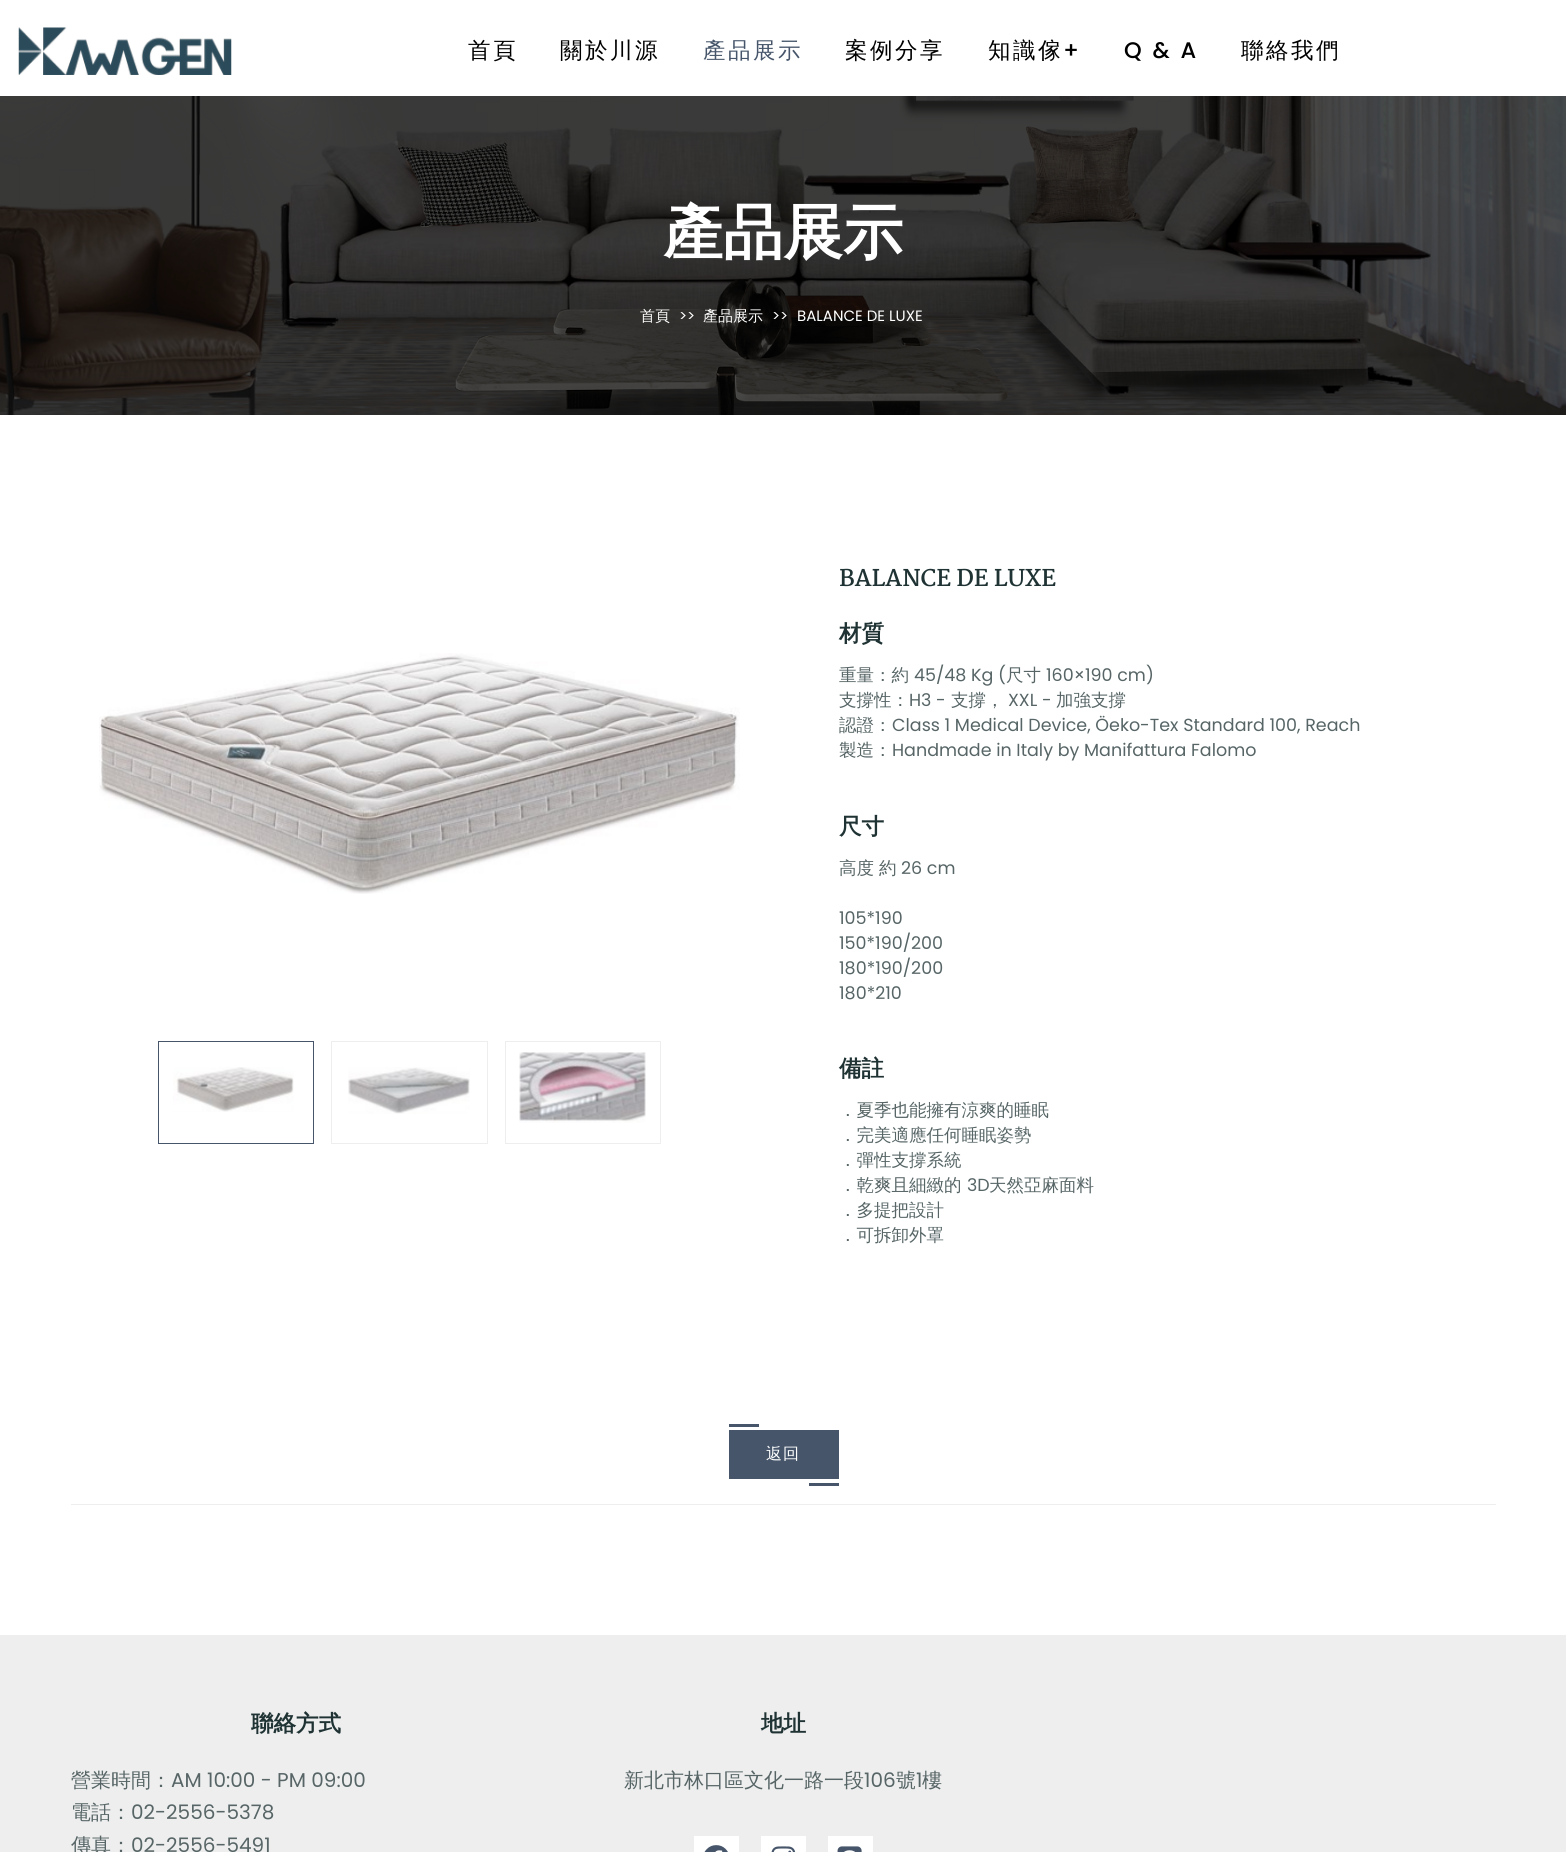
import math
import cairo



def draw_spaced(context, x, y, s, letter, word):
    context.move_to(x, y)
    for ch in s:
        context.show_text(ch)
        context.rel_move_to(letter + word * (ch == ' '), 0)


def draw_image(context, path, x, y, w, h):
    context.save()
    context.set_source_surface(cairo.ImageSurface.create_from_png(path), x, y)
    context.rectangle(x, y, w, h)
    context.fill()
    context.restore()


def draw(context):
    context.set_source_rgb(1, 1, 1)
    context.paint()
    draw_image(context, "images/1.png", 18, 27, 214, 48)
    draw_image(context, "images/2.png", 0, 96, 1566, 319)
    draw_image(context, "images/3.png", 99, 653, 641, 241)
    context.rectangle(158.5, 1041.5, 155, 102)
    context.set_source_rgb(70 / 255, 85 / 255, 106 / 255)
    context.set_line_width(1)
    context.stroke()
    draw_image(context, "images/4.png", 173, 1067, 121, 45)
    context.rectangle(331.5, 1041.5, 156, 102)
    context.set_source_rgb(238 / 255, 238 / 255, 238 / 255)
    context.stroke()
    draw_image(context, "images/5.png", 348, 1067, 122, 47)
    context.rectangle(505.5, 1041.5, 155, 102)
    context.stroke()
    draw_image(context, "images/6.png", 519, 1052, 127, 71)
    context.set_source_rgb(70 / 255, 85 / 255, 106 / 255)
    context.rectangle(729, 1430, 110, 49)
    context.fill()
    context.rectangle(729, 1424, 30, 3)
    context.fill()
    context.rectangle(809, 1483, 30, 3)
    context.fill()
    context.set_source_rgb(238 / 255, 238 / 255, 238 / 255)
    context.rectangle(71, 1504, 1425, 1)
    context.fill()
    context.rectangle(0, 1635, 1566, 217)
    context.fill()
    context.set_source_rgb(1, 1, 1)
    context.rectangle(694, 1836, 45, 16)
    context.fill()
    draw_image(context, "images/7.png", 704, 1845, 24, 7)
    context.rectangle(761, 1836, 45, 16)
    context.fill()
    draw_image(context, "images/8.png", 771, 1846, 25, 6)
    context.rectangle(828, 1836, 45, 16)
    context.fill()
    draw_image(context, "images/9.png", 837, 1846, 25, 6)
    context.select_font_face("WenQuanYi Zen Hei Medium")
    context.set_font_size(22.5)
    context.set_source_rgb(0, 0, 0)
    draw_spaced(context, 468, 58, "首頁", 2.5, 0)
    draw_spaced(context, 560, 58, "關於川源", 2.5, 0)
    context.set_source_rgb(70 / 255, 85 / 255, 106 / 255)
    draw_spaced(context, 703, 58, "產品展示", 2.5, 0)
    context.set_source_rgb(0, 0, 0)
    draw_spaced(context, 845, 58, "案例分享", 2.5, 0)
    draw_spaced(context, 988, 58, "知識傢", 2.5, 0)
    context.select_font_face("Poppins Medium")
    draw_spaced(context, 1063, 58, "+", 2.5, 0)
    draw_spaced(context, 1124, 58, "Q & A", 2.5, 0)
    context.select_font_face("WenQuanYi Zen Hei Medium")
    draw_spaced(context, 1241, 58, "聯絡我們", 2.5, 0)
    context.select_font_face("WenQuanYi Zen Hei", cairo.FontSlant.NORMAL, cairo.FontWeight.BOLD)
    context.set_font_size(60)
    context.set_source_rgb(1, 1, 1)
    context.move_to(663, 253)
    context.show_text("產品展示")
    context.select_font_face("WenQuanYi Zen Hei Medium")
    context.set_font_size(15)
    context.move_to(640, 321)
    context.show_text("首頁")
    context.select_font_face("Poppins")
    context.move_to(679, 321)
    context.show_text(">>")
    context.select_font_face("WenQuanYi Zen Hei Medium")
    context.move_to(703, 321)
    context.show_text("產品展示")
    context.select_font_face("Poppins")
    context.move_to(772, 321)
    context.show_text(">>")
    context.move_to(797, 321)
    context.show_text("BALANCE DE LUXE")
    context.select_font_face("Martel", cairo.FontSlant.NORMAL, cairo.FontWeight.BOLD)
    context.set_font_size(22.5)
    context.set_source_rgb(32 / 255, 51 / 255, 52 / 255)
    context.move_to(839, 586)
    context.show_text("BALANCE DE LUXE")
    context.select_font_face("WenQuanYi Zen Hei", cairo.FontSlant.NORMAL, cairo.FontWeight.BOLD)
    context.move_to(839, 641)
    context.show_text("材質")
    context.select_font_face("WenQuanYi Zen Hei Medium")
    context.set_font_size(17.5)
    context.set_source_rgb(87 / 255, 101 / 255, 102 / 255)
    context.move_to(839, 681)
    context.show_text("重量：約")
    context.select_font_face("Poppins")
    context.move_to(914, 681)
    context.show_text("45/48 Kg (")
    context.select_font_face("WenQuanYi Zen Hei Medium")
    context.move_to(1006, 681)
    context.show_text("尺寸")
    context.select_font_face("Poppins")
    context.move_to(1046, 681)
    context.show_text("160×190 cm)")
    context.select_font_face("WenQuanYi Zen Hei Medium")
    context.move_to(839, 706)
    context.show_text("支撐性：")
    context.select_font_face("Poppins")
    context.move_to(909, 706)
    context.show_text("H3 -")
    context.select_font_face("WenQuanYi Zen Hei Medium")
    context.move_to(951, 706)
    context.show_text("支撐，")
    context.select_font_face("Poppins")
    context.move_to(1008, 706)
    context.show_text("XXL -")
    context.select_font_face("WenQuanYi Zen Hei Medium")
    context.move_to(1056, 706)
    context.show_text("加強支撐")
    context.move_to(839, 731)
    context.show_text("認證：")
    context.select_font_face("Poppins")
    context.move_to(892, 731)
    context.show_text("Class 1 Medical Device, Öeko-Tex Standard 100, Reach")
    context.select_font_face("WenQuanYi Zen Hei Medium")
    context.move_to(839, 756)
    context.show_text("製造：")
    context.select_font_face("Poppins")
    context.move_to(892, 756)
    context.show_text("Handmade in Italy by Manifattura Falomo")
    context.select_font_face("WenQuanYi Zen Hei", cairo.FontSlant.NORMAL, cairo.FontWeight.BOLD)
    context.set_font_size(22.5)
    context.set_source_rgb(32 / 255, 51 / 255, 52 / 255)
    context.move_to(839, 834)
    context.show_text("尺寸")
    context.select_font_face("WenQuanYi Zen Hei Medium")
    context.set_font_size(17.5)
    context.set_source_rgb(87 / 255, 101 / 255, 102 / 255)
    context.move_to(839, 874)
    context.show_text("高度")
    context.move_to(879, 874)
    context.show_text("約")
    context.select_font_face("Poppins")
    context.move_to(901, 874)
    context.show_text("26 cm")
    context.move_to(839, 924)
    context.show_text("105*190")
    context.move_to(839, 949)
    context.show_text("150*190/200")
    context.move_to(839, 974)
    context.show_text("180*190/200")
    context.move_to(839, 999)
    context.show_text("180*210")
    context.select_font_face("WenQuanYi Zen Hei", cairo.FontSlant.NORMAL, cairo.FontWeight.BOLD)
    context.set_font_size(22.5)
    context.set_source_rgb(32 / 255, 51 / 255, 52 / 255)
    context.move_to(839, 1076)
    context.show_text("備註")
    context.select_font_face("WenQuanYi Zen Hei Medium")
    context.set_font_size(17.5)
    context.set_source_rgb(87 / 255, 101 / 255, 102 / 255)
    context.move_to(839, 1116)
    context.show_text("．夏季也能擁有涼爽的睡眠")
    context.move_to(839, 1141)
    context.show_text("．完美適應任何睡眠姿勢")
    context.move_to(839, 1166)
    context.show_text("．彈性支撐系統")
    context.move_to(839, 1191)
    context.show_text("．乾爽且細緻的")
    context.select_font_face("Poppins")
    context.move_to(967, 1191)
    context.show_text("3D")
    context.select_font_face("WenQuanYi Zen Hei Medium")
    context.move_to(989, 1191)
    context.show_text("天然亞麻面料")
    context.move_to(839, 1216)
    context.show_text("．多提把設計")
    context.move_to(839, 1241)
    context.show_text("．可拆卸外罩")
    context.set_font_size(16)
    context.set_source_rgb(1, 1, 1)
    draw_spaced(context, 766, 1459, "返回", 1, 0)
    context.select_font_face("WenQuanYi Zen Hei", cairo.FontSlant.NORMAL, cairo.FontWeight.BOLD)
    context.set_font_size(22.5)
    context.set_source_rgb(32 / 255, 51 / 255, 52 / 255)
    context.move_to(251, 1731)
    context.show_text("聯絡方式")
    context.select_font_face("WenQuanYi Zen Hei Medium")
    context.set_font_size(20)
    context.set_source_rgb(87 / 255, 101 / 255, 102 / 255)
    context.move_to(71, 1787)
    context.show_text("營業時間：")
    context.select_font_face("Poppins")
    context.move_to(171, 1787)
    context.show_text("AM 10:00 - PM 09:00")
    context.select_font_face("WenQuanYi Zen Hei Medium")
    context.move_to(71, 1819)
    context.show_text("電話：")
    context.select_font_face("Poppins")
    context.move_to(131, 1819)
    context.show_text("02-2556-5378")
    context.select_font_face("WenQuanYi Zen Hei Medium")
    context.move_to(71, 1852)
    context.show_text("傳真：")
    context.select_font_face("Poppins")
    context.move_to(131, 1852)
    context.show_text("02-2556-5491")
    context.select_font_face("WenQuanYi Zen Hei", cairo.FontSlant.NORMAL, cairo.FontWeight.BOLD)
    context.set_font_size(22.5)
    context.set_source_rgb(32 / 255, 51 / 255, 52 / 255)
    context.move_to(761, 1731)
    context.show_text("地址")
    context.select_font_face("WenQuanYi Zen Hei Medium")
    context.set_font_size(20)
    context.set_source_rgb(87 / 255, 101 / 255, 102 / 255)
    context.move_to(624, 1787)
    context.show_text("新北市林口區文化一路一段")
    context.select_font_face("Poppins")
    context.move_to(864, 1787)
    context.show_text("106")
    context.select_font_face("WenQuanYi Zen Hei Medium")
    context.move_to(896, 1787)
    context.show_text("號")
    context.select_font_face("Poppins")
    context.move_to(916, 1787)
    context.show_text("1")
    context.select_font_face("WenQuanYi Zen Hei Medium")
    context.move_to(922, 1787)
    context.show_text("樓")


surface = cairo.ImageSurface(cairo.Format.RGB24, 1566, 1852)
context = cairo.Context(surface)
options = cairo.FontOptions()
options.set_hint_metrics(cairo.HintMetrics.OFF)
options.set_hint_style(cairo.HintStyle.NONE)
context.set_font_options(options)
context.set_miter_limit(4)
draw(context)
surface.write_to_png("out.png")
